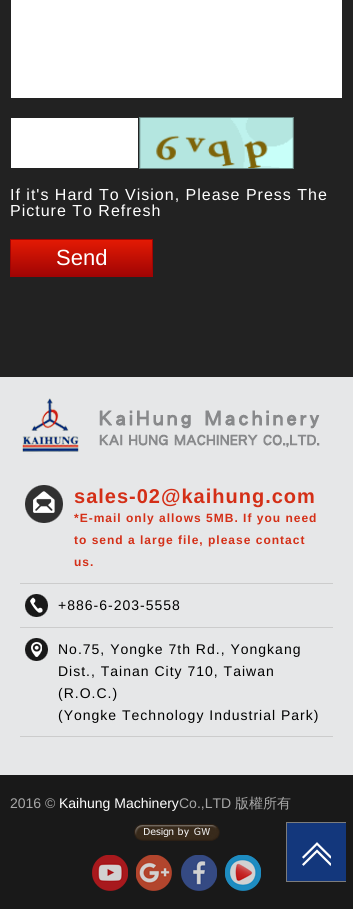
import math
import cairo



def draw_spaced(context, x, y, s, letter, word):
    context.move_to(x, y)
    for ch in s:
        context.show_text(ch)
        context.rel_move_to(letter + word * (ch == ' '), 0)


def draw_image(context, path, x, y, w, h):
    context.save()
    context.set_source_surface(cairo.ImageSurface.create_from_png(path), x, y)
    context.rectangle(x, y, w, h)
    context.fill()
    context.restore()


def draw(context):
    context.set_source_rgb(230 / 255, 231 / 255, 232 / 255)
    context.paint()
    context.set_source_rgb(34 / 255, 34 / 255, 34 / 255)
    context.rectangle(0, 0, 353, 377)
    context.fill()
    context.set_source_rgb(1, 1, 1)
    context.rectangle(11, 0, 331, 98)
    context.fill()
    context.rectangle(11, 118, 127, 50)
    context.fill()
    draw_image(context, "images/1.png", 139, 117, 155, 52)
    gradient = cairo.LinearGradient(82, 240, 82, 276)
    gradient.add_color_stop_rgba(0, 227 / 255, 26 / 255, 4 / 255, 1)
    gradient.add_color_stop_rgba(1, 160 / 255, 4 / 255, 4 / 255, 1)
    context.set_source(gradient)
    context.rectangle(11, 240, 141, 36)
    context.fill()
    context.rectangle(10.5, 239.5, 142, 37)
    context.set_source_rgb(160 / 255, 4 / 255, 4 / 255)
    context.set_line_width(1)
    context.stroke()
    draw_image(context, "images/2.png", 22, 398, 298, 56)
    context.set_source_rgb(204 / 255, 204 / 255, 204 / 255)
    context.rectangle(20, 583, 313, 1)
    context.fill()
    draw_image(context, "images/3.png", 25, 485, 38, 38)
    context.rectangle(20, 627, 313, 1)
    context.fill()
    draw_image(context, "images/4.png", 25, 594, 23, 23)
    context.rectangle(20, 736, 313, 1)
    context.fill()
    draw_image(context, "images/5.png", 25, 638, 23, 23)
    context.set_source_rgb(25 / 255, 25 / 255, 25 / 255)
    context.rectangle(0, 775, 353, 134)
    context.fill()
    draw_image(context, "images/6.png", 134, 824, 86, 17)
    draw_image(context, "images/7.png", 92, 855, 36, 36)
    draw_image(context, "images/8.png", 136, 855, 36, 36)
    draw_image(context, "images/9.png", 181, 855, 36, 36)
    draw_image(context, "images/10.png", 225, 855, 36, 36)
    context.set_source_rgb(19 / 255, 55 / 255, 124 / 255)
    context.rectangle(287, 823, 59, 58)
    context.fill()
    context.set_source_rgb(124 / 255, 124 / 255, 124 / 255)
    context.rectangle(286, 822, 60, 1)
    context.fill()
    context.rectangle(286, 881, 60, 1)
    context.fill()
    context.rectangle(286, 822, 1, 60)
    context.fill()
    draw_image(context, "images/11.png", 302, 842, 29, 24)
    context.select_font_face("Liberation Sans")
    context.set_font_size(16)
    context.set_source_rgb(1, 1, 1)
    draw_spaced(context, 10, 200, "If it's Hard To Vision, Please Press The", 1, 0)
    draw_spaced(context, 10, 216, "Picture To Refresh", 1, 0)
    context.set_font_size(22)
    context.move_to(56, 265)
    context.show_text("Send")
    context.select_font_face("Liberation Sans", cairo.FontSlant.NORMAL, cairo.FontWeight.BOLD)
    context.set_font_size(20)
    context.set_source_rgb(212 / 255, 47 / 255, 23 / 255)
    draw_spaced(context, 74, 503, "sales-02@kaihung.com", 1, 0)
    context.set_font_size(12)
    draw_spaced(context, 74, 522, "*E-mail only allows 5MB. If you need", 1, 0)
    draw_spaced(context, 74, 544, "to send a large file, please contact", 1, 0)
    draw_spaced(context, 74, 566, "us.", 1, 0)
    context.select_font_face("Liberation Sans")
    context.set_font_size(14)
    context.set_source_rgb(0, 0, 0)
    draw_spaced(context, 58, 610, "+886-6-203-5558", 1, 0)
    draw_spaced(context, 58, 654, "No.75, Yongke 7th Rd., Yongkang", 1, 0)
    draw_spaced(context, 58, 676, "Dist., Tainan City 710, Taiwan", 1, 0)
    draw_spaced(context, 58, 698, "(R.O.C.)", 1, 0)
    draw_spaced(context, 58, 720, "(Yongke Technology Industrial Park)", 1, 0)
    context.set_source_rgb(167 / 255, 167 / 255, 167 / 255)
    context.move_to(10, 808)
    context.show_text("2016 ©")
    context.set_source_rgb(1, 1, 1)
    context.move_to(59, 808)
    context.show_text("Kaihung Machinery")
    context.set_source_rgb(167 / 255, 167 / 255, 167 / 255)
    context.move_to(179, 808)
    context.show_text("Co.,LTD")
    context.select_font_face("WenQuanYi Zen Hei Medium")
    context.move_to(235, 808)
    context.show_text("版權所有")


surface = cairo.ImageSurface(cairo.Format.RGB24, 353, 909)
context = cairo.Context(surface)
options = cairo.FontOptions()
options.set_hint_metrics(cairo.HintMetrics.OFF)
options.set_hint_style(cairo.HintStyle.NONE)
context.set_font_options(options)
context.set_miter_limit(4)
draw(context)
surface.write_to_png("out.png")
